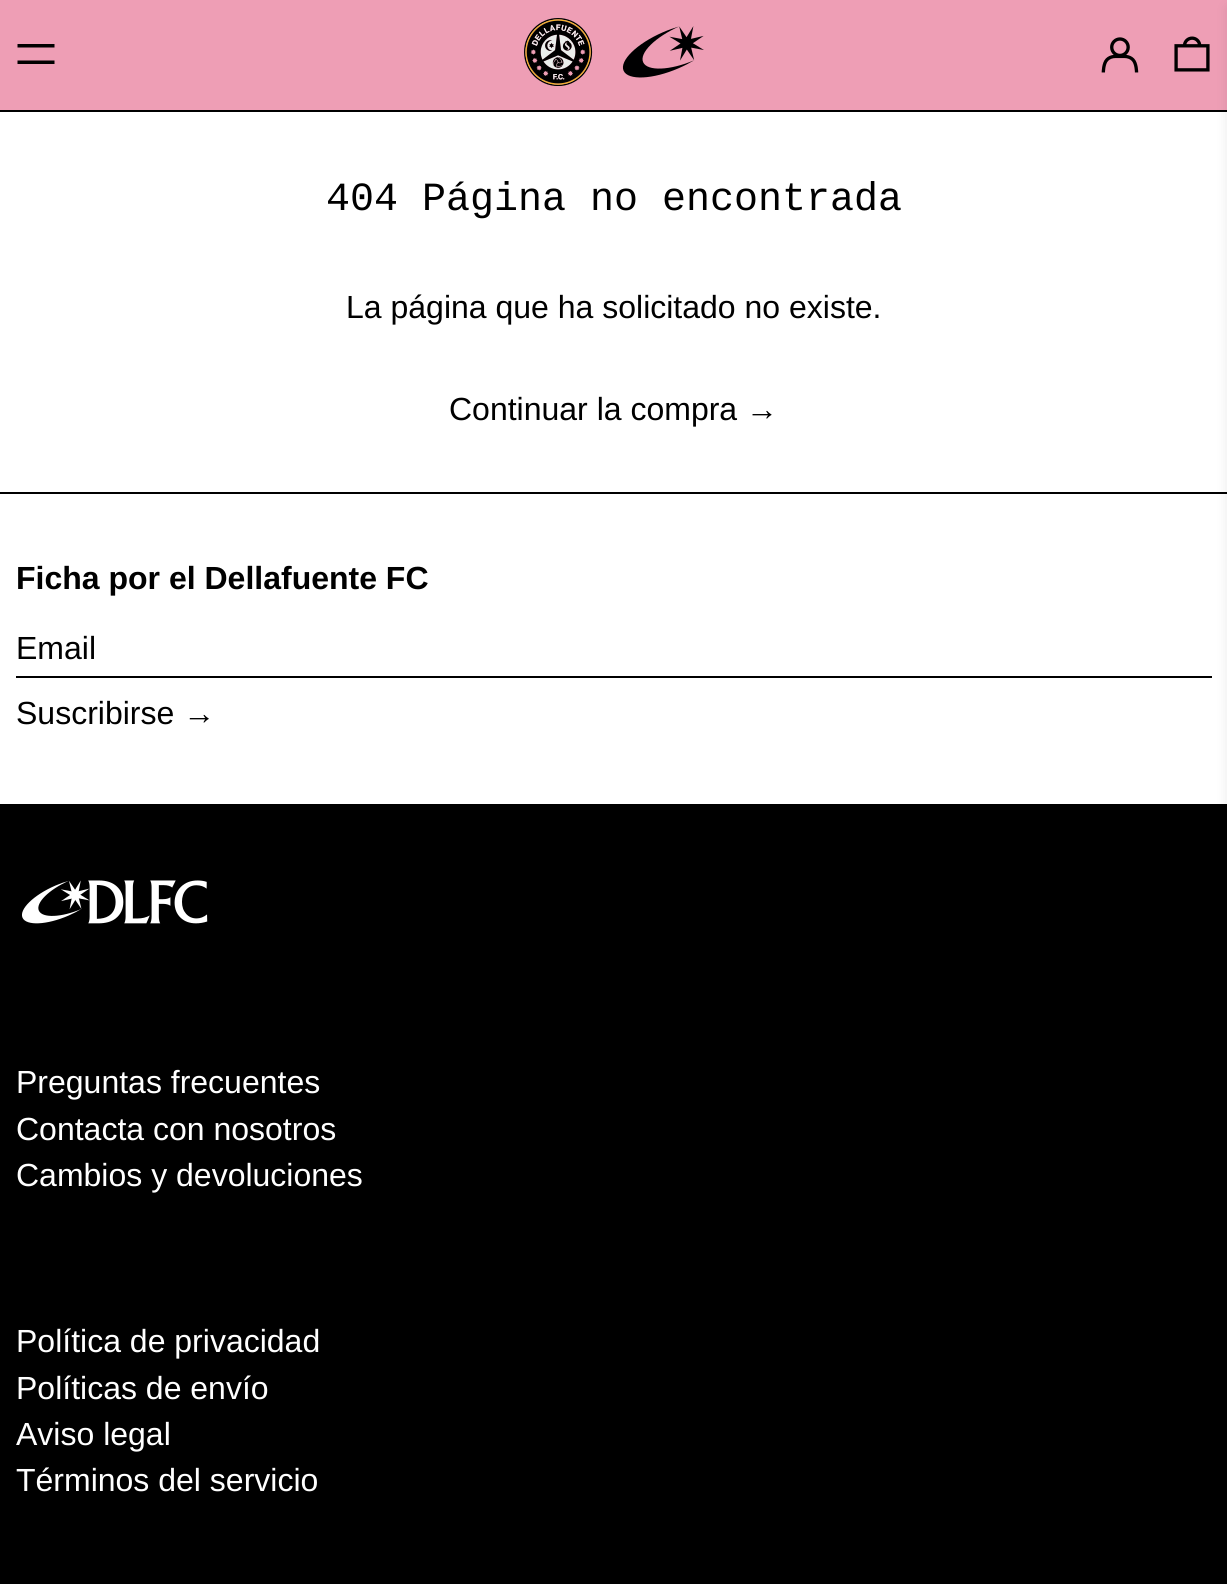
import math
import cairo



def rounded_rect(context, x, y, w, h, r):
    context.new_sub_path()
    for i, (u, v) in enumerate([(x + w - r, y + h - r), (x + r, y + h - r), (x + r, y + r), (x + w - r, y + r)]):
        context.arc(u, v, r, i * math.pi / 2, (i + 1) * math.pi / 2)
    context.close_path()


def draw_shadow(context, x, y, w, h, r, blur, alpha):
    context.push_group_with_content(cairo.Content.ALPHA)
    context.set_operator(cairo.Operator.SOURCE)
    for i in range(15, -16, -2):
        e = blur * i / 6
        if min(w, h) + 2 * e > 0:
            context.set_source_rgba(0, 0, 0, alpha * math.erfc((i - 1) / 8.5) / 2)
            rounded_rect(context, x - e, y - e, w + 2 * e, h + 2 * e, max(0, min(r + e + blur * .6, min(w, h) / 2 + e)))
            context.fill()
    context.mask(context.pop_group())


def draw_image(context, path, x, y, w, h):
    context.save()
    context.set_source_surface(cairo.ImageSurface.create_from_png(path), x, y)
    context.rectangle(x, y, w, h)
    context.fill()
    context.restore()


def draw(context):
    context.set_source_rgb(1, 1, 1)
    context.paint()
    context.set_source_rgb(238 / 255, 158 / 255, 181 / 255)
    context.rectangle(0, 0, 1227, 110)
    context.fill()
    context.set_source_rgb(0, 0, 0)
    context.rectangle(0, 110, 1227, 2)
    context.fill()
    context.set_fill_rule(cairo.FillRule.EVEN_ODD)
    context.new_path()
    context.move_to(54.5, 60.5)
    context.line_to(54.5, 64)
    context.line_to(17.5, 64)
    context.line_to(17.5, 60.5)
    context.close_path()
    context.move_to(54.5, 44)
    context.line_to(54.5, 47.5)
    context.line_to(17.5, 47.5)
    context.line_to(17.5, 44)
    context.close_path()
    context.fill()
    draw_image(context, "images/1.png", 524, 18, 180, 68)
    draw_image(context, "images/2.png", 1101, 37, 38, 36)
    draw_image(context, "images/3.png", 1174, 36, 36, 36)
    context.rectangle(0, 492, 1227, 1092)
    context.fill()
    context.set_source_rgb(1, 1, 1)
    context.rectangle(0, 494, 1227, 310)
    context.fill()
    context.set_source_rgb(0, 0, 0)
    context.rectangle(16, 676, 1196, 2)
    context.fill()
    draw_image(context, "images/4.png", 22, 880, 186, 44)
    context.set_source_rgb(0, 0, 0)
    draw_shadow(context, 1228, 8, 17, 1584, 0, 6, 0.1)
    context.select_font_face("Liberation Mono")
    context.set_font_size(40)
    context.set_source_rgb(0, 0, 0)
    context.move_to(326, 210)
    context.show_text("404 Página no encontrada")
    context.select_font_face("Liberation Sans")
    context.set_font_size(32)
    context.move_to(346, 318)
    context.show_text("La página que ha solicitado no existe.")
    context.move_to(449, 420)
    context.show_text("Continuar la compra →")
    context.select_font_face("Liberation Sans", cairo.FontSlant.NORMAL, cairo.FontWeight.BOLD)
    context.move_to(16, 589)
    context.show_text("Ficha por el Dellafuente FC")
    context.select_font_face("Liberation Sans")
    context.move_to(16, 659)
    context.show_text("Email")
    context.move_to(16, 724)
    context.show_text("Suscribirse →")
    context.set_source_rgb(1, 1, 1)
    context.move_to(16, 1093)
    context.show_text("Preguntas frecuentes")
    context.move_to(16, 1140)
    context.show_text("Contacta con nosotros")
    context.move_to(16, 1186)
    context.show_text("Cambios y devoluciones")
    context.move_to(16, 1352)
    context.show_text("Política de privacidad")
    context.move_to(16, 1399)
    context.show_text("Políticas de envío")
    context.move_to(16, 1445)
    context.show_text("Aviso legal")
    context.move_to(16, 1491)
    context.show_text("Términos del servicio")


surface = cairo.ImageSurface(cairo.Format.RGB24, 1227, 1584)
context = cairo.Context(surface)
options = cairo.FontOptions()
options.set_hint_metrics(cairo.HintMetrics.OFF)
options.set_hint_style(cairo.HintStyle.NONE)
context.set_font_options(options)
context.set_miter_limit(4)
draw(context)
surface.write_to_png("out.png")
